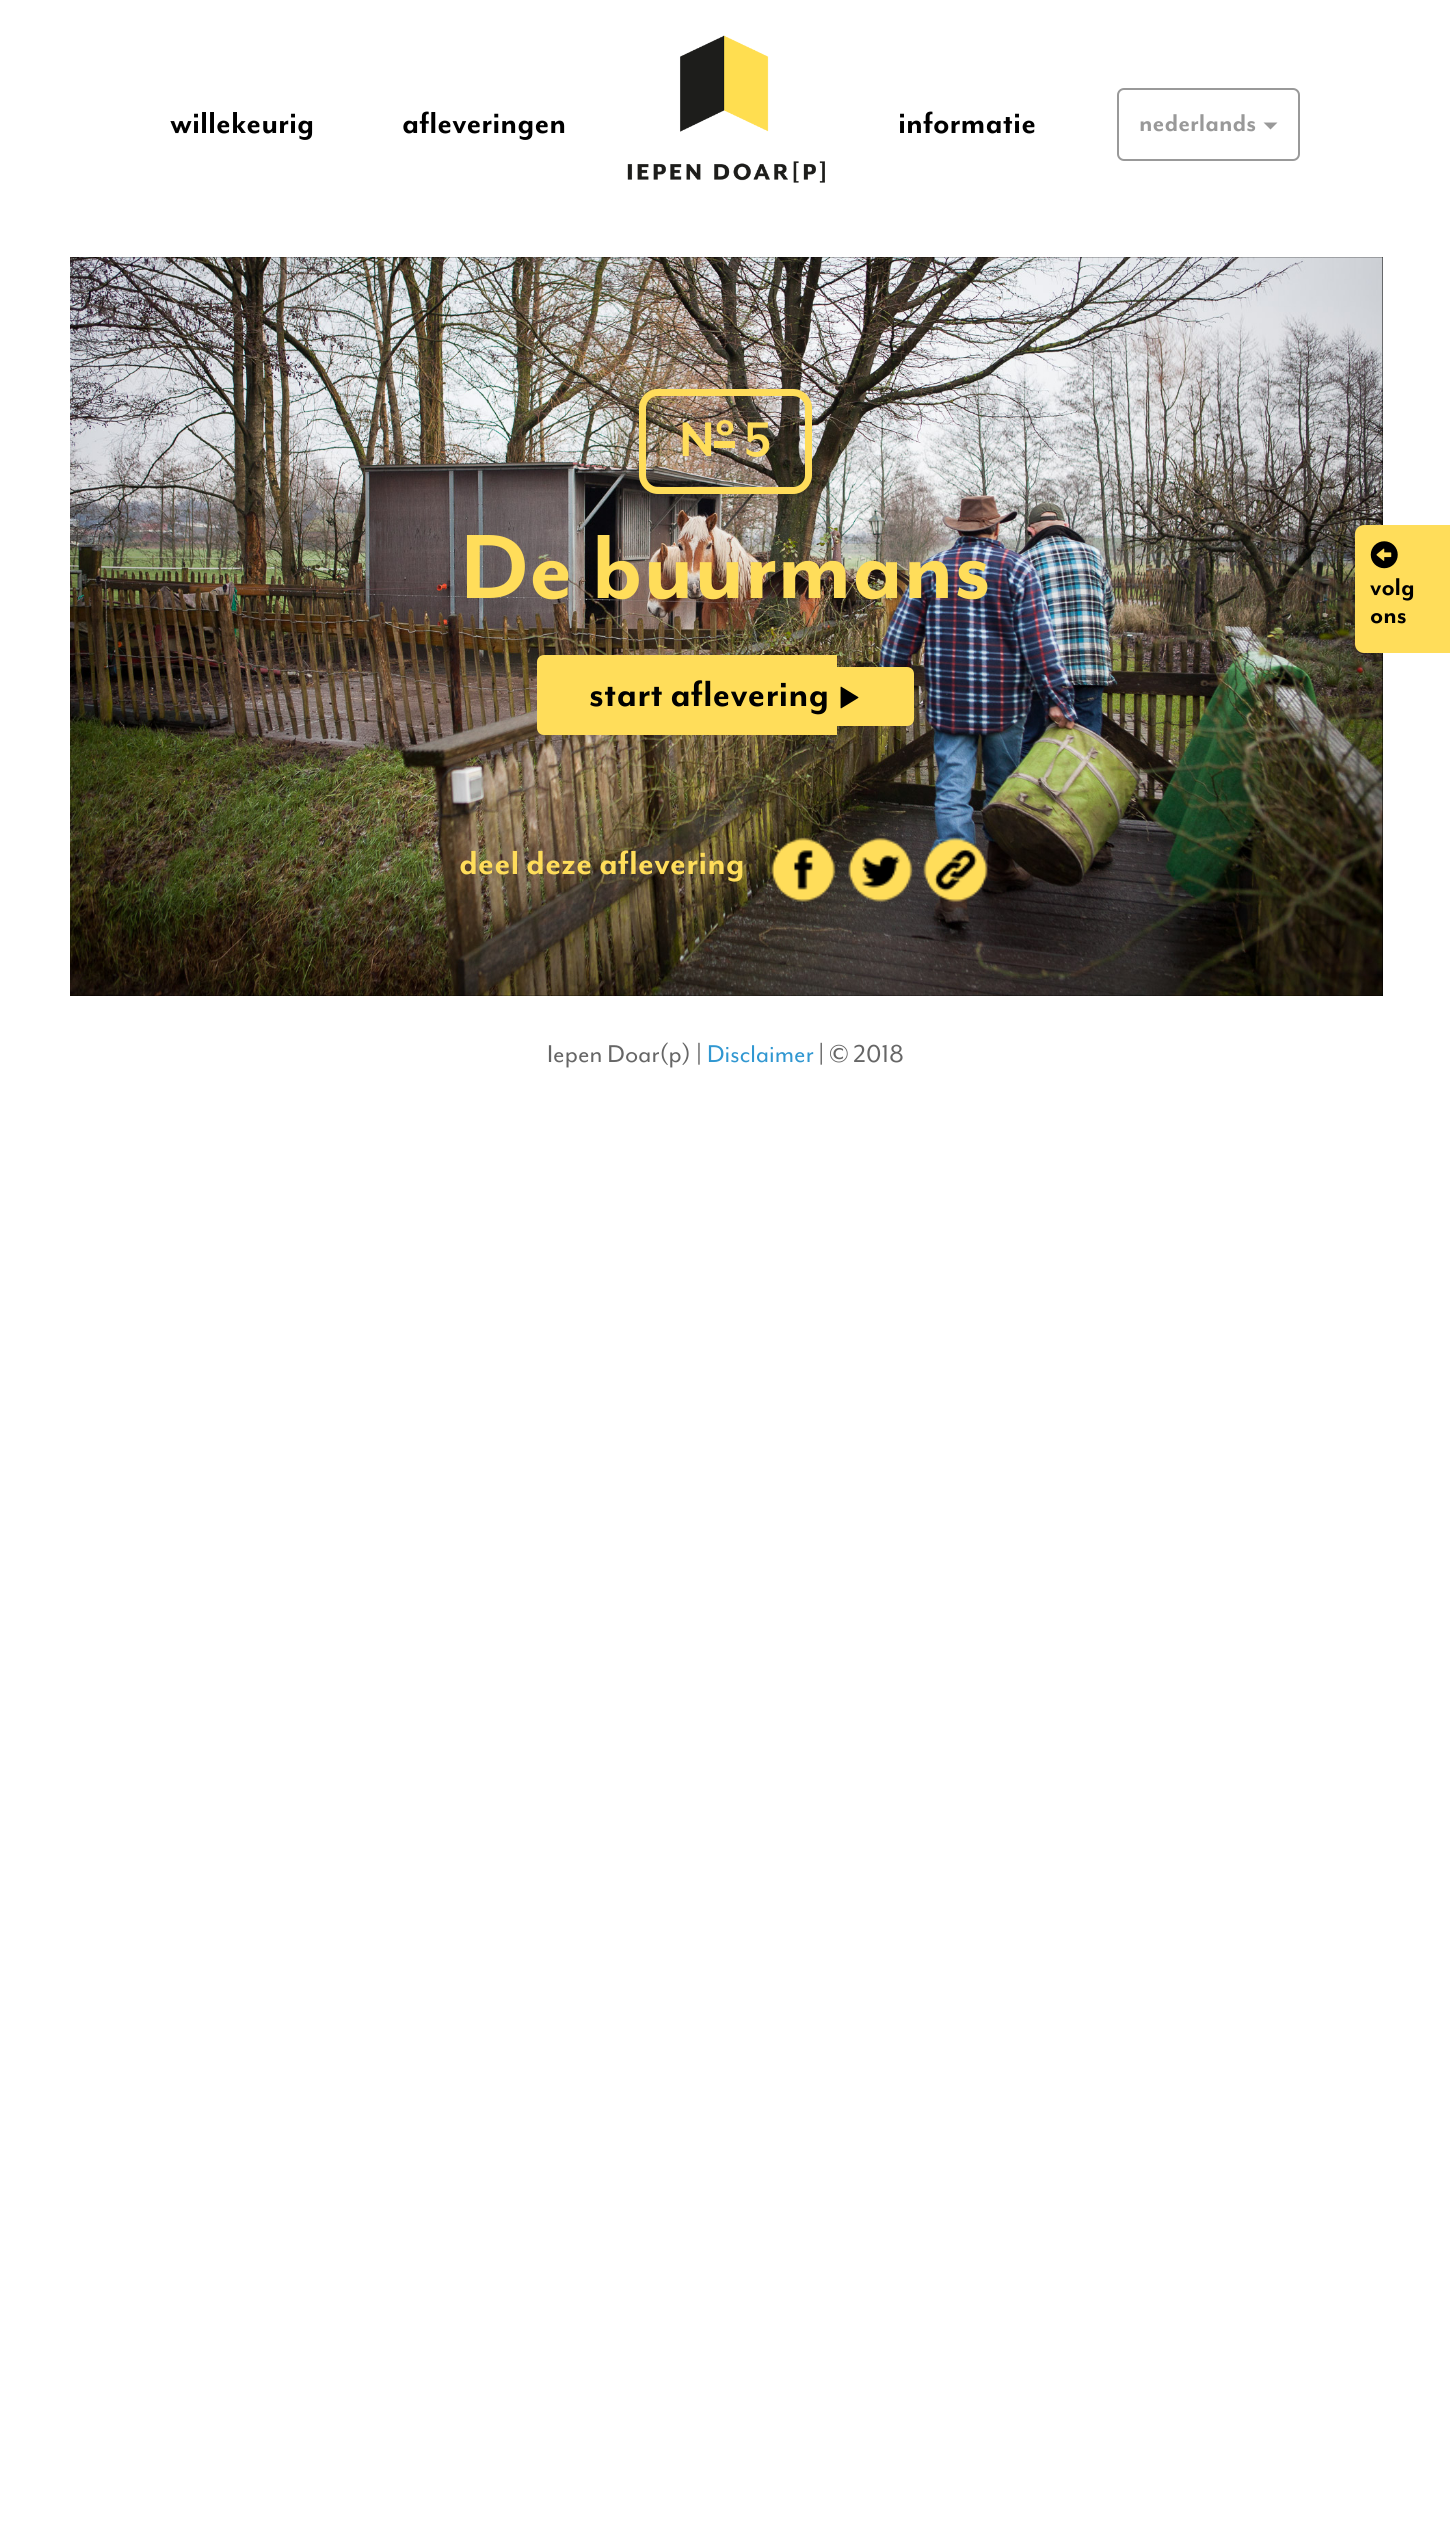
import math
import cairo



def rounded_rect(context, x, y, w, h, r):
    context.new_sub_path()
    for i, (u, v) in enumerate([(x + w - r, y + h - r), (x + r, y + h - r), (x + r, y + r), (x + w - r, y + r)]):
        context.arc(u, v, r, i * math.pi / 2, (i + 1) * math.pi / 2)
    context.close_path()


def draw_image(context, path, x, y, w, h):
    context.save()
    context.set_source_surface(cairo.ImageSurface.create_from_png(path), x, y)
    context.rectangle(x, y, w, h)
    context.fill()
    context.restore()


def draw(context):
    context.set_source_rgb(1, 1, 1)
    context.paint()
    draw_image(context, "images/1.png", 627, 35, 198, 148)
    rounded_rect(context, 1118, 89, 181, 71, 6)
    context.set_source_rgb(153 / 255, 153 / 255, 153 / 255)
    context.stroke()
    context.new_path()
    context.move_to(1263.5, 122.5)
    context.line_to(1277.5, 122.5)
    context.line_to(1270.5, 129.5)
    context.close_path()
    context.fill()
    context.set_source_rgb(0, 0, 0)
    context.rectangle(70, 257, 1313, 739)
    context.fill()
    draw_image(context, "images/2.png", 70, 257, 1313, 739)
    rounded_rect(context, 642.5, 392.5, 166, 98, 15.5)
    context.set_source_rgb(1, 221 / 255, 90 / 255)
    context.set_line_width(7)
    context.stroke()
    context.rectangle(714, 441, 21, 7)
    context.fill()
    context.new_path()
    context.move_to(544, 655)
    context.line_to(837, 655)
    context.line_to(837, 735)
    context.line_to(544, 735)
    context.curve_to(540, 735, 537, 732, 537, 728)
    context.line_to(537, 662)
    context.curve_to(537, 658, 540, 655, 544, 655)
    context.close_path()
    context.fill()
    context.new_path()
    context.move_to(837, 667)
    context.line_to(907, 667)
    context.curve_to(911, 667, 914, 670, 914, 674)
    context.line_to(914, 719)
    context.curve_to(914, 723, 911, 726, 907, 726)
    context.line_to(837, 726)
    context.close_path()
    context.fill()
    draw_image(context, "images/3.png", 840, 686, 19, 23)
    draw_image(context, "images/4.png", 771, 837, 65, 65)
    draw_image(context, "images/5.png", 848, 837, 65, 65)
    draw_image(context, "images/6.png", 923, 837, 65, 65)
    context.new_path()
    context.move_to(1364, 525)
    context.line_to(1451, 525)
    context.line_to(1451, 653)
    context.line_to(1364, 653)
    context.curve_to(1359, 653, 1355, 649, 1355, 644)
    context.line_to(1355, 534)
    context.curve_to(1355, 529, 1359, 525, 1364, 525)
    context.close_path()
    context.fill()
    draw_image(context, "images/7.png", 1370, 541, 28, 28)
    context.select_font_face("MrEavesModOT", cairo.FontSlant.NORMAL, cairo.FontWeight.BOLD)
    context.set_font_size(35)
    context.set_source_rgb(0, 0, 0)
    context.move_to(170, 133)
    context.show_text("willekeurig")
    context.move_to(402, 133)
    context.show_text("afleveringen")
    context.move_to(898, 133)
    context.show_text("informatie")
    context.set_font_size(28)
    context.set_source_rgb(153 / 255, 153 / 255, 153 / 255)
    context.move_to(1139, 131)
    context.show_text("nederlands")
    context.set_font_size(56)
    context.set_source_rgb(1, 221 / 255, 90 / 255)
    context.move_to(679, 456)
    context.show_text("N")
    context.set_font_size(42)
    context.move_to(715, 435)
    context.show_text("o")
    context.set_font_size(56)
    context.move_to(744, 456)
    context.show_text("5")
    context.set_font_size(105)
    context.move_to(460, 598)
    context.show_text("De buurmans")
    context.set_font_size(42)
    context.set_source_rgb(0, 0, 0)
    context.move_to(589, 706)
    context.show_text("start aflevering")
    context.set_font_size(38.5)
    context.set_source_rgb(1, 221 / 255, 90 / 255)
    context.move_to(459, 874)
    context.show_text("deel deze aflevering")
    context.set_font_size(28)
    context.set_source_rgb(0, 0, 0)
    context.move_to(1370, 595)
    context.show_text("volg")
    context.move_to(1370, 623)
    context.show_text("ons")
    context.select_font_face("MrEavesModOT")
    context.set_source_rgb(102 / 255, 102 / 255, 102 / 255)
    context.move_to(547, 1062)
    context.show_text("Iepen Doar(p) |")
    context.set_source_rgb(48 / 255, 151 / 255, 209 / 255)
    context.move_to(707, 1062)
    context.show_text("Disclaimer")
    context.set_source_rgb(102 / 255, 102 / 255, 102 / 255)
    context.move_to(818, 1062)
    context.show_text("| © 2018")


surface = cairo.ImageSurface(cairo.Format.RGB24, 1450, 2531)
context = cairo.Context(surface)
options = cairo.FontOptions()
options.set_hint_metrics(cairo.HintMetrics.OFF)
options.set_hint_style(cairo.HintStyle.NONE)
context.set_font_options(options)
context.set_miter_limit(4)
draw(context)
surface.write_to_png("out.png")
